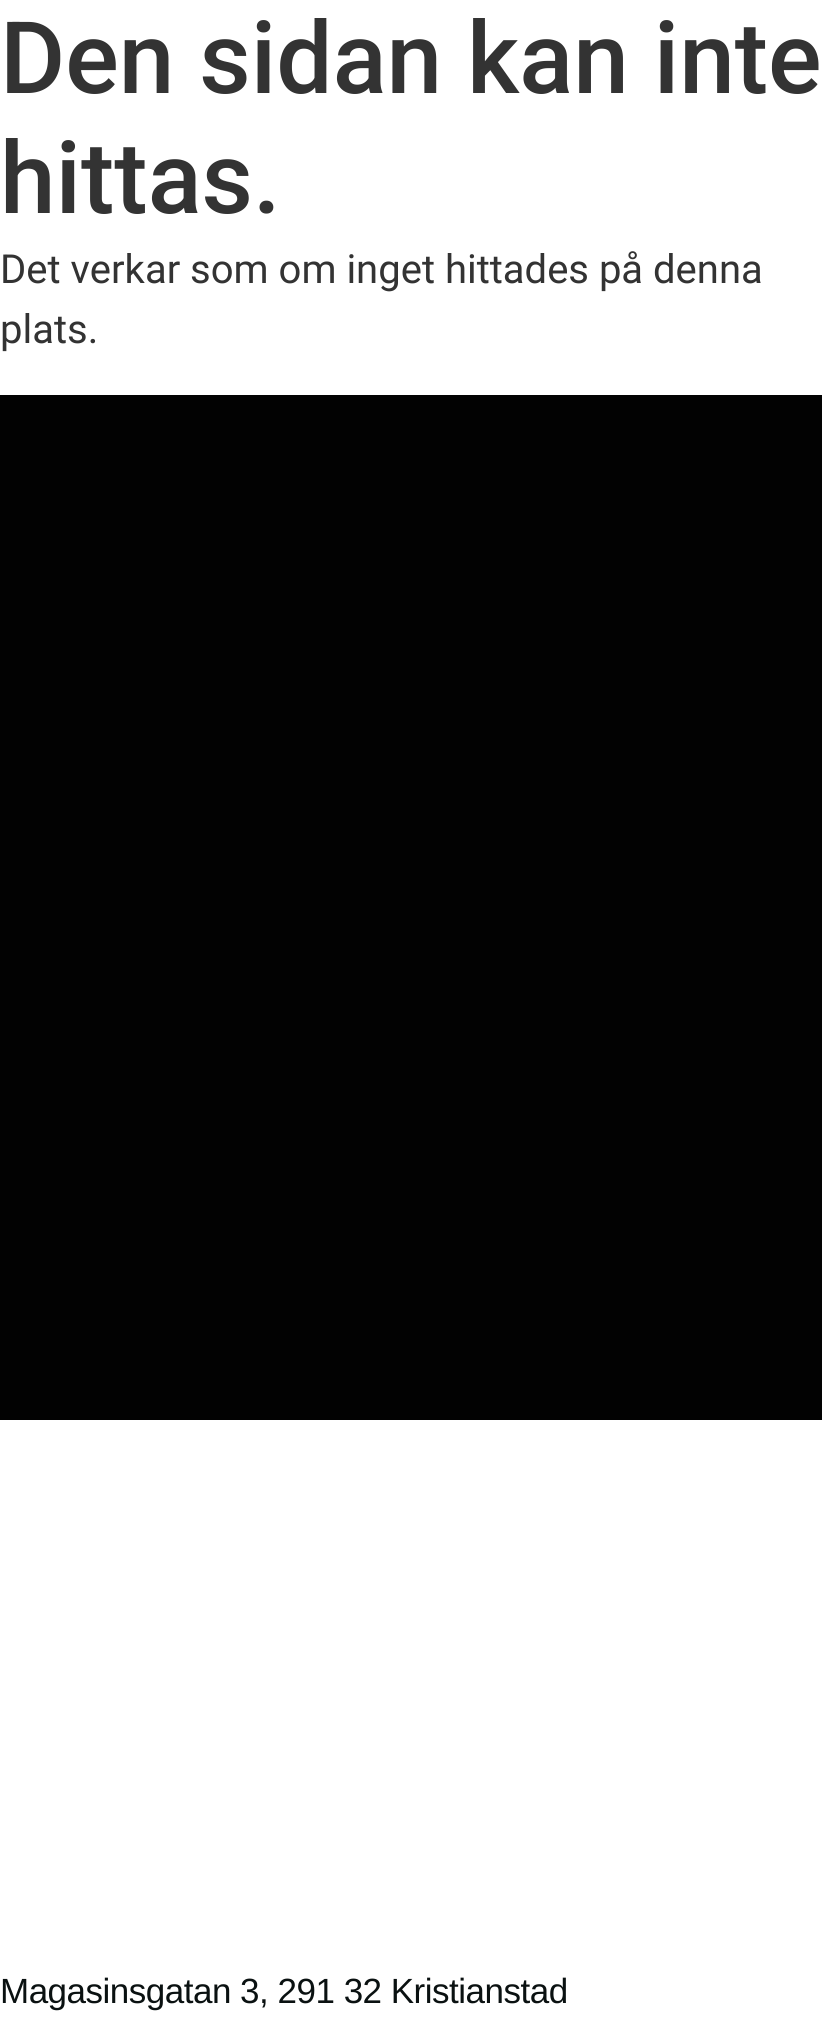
import math
import cairo



def draw_spaced(context, x, y, s, letter, word):
    context.move_to(x, y)
    for ch in s:
        context.show_text(ch)
        context.rel_move_to(letter + word * (ch == ' '), 0)


def draw(context):
    context.set_source_rgb(1, 1, 1)
    context.paint()
    context.set_source_rgb(2 / 255, 2 / 255, 2 / 255)
    context.rectangle(0, 395, 822, 1025)
    context.fill()
    context.select_font_face("Roboto Medium")
    context.set_font_size(100)
    context.set_source_rgb(51 / 255, 51 / 255, 51 / 255)
    context.move_to(0, 93)
    context.show_text("Den sidan kan inte")
    context.move_to(0, 213)
    context.show_text("hittas.")
    context.select_font_face("Roboto")
    context.set_font_size(40)
    context.move_to(0, 283)
    context.show_text("Det verkar som om inget hittades på denna")
    context.move_to(0, 343)
    context.show_text("plats.")
    context.select_font_face("Liberation Sans")
    context.set_font_size(35)
    context.set_source_rgb(10 / 255, 17 / 255, 17 / 255)
    draw_spaced(context, 0, 2003, "Magasinsgatan 3, 291 32 Kristianstad", -0.5, 0)


surface = cairo.ImageSurface(cairo.Format.RGB24, 822, 2032)
context = cairo.Context(surface)
options = cairo.FontOptions()
options.set_hint_metrics(cairo.HintMetrics.OFF)
options.set_hint_style(cairo.HintStyle.NONE)
context.set_font_options(options)
context.set_miter_limit(4)
draw(context)
surface.write_to_png("out.png")
